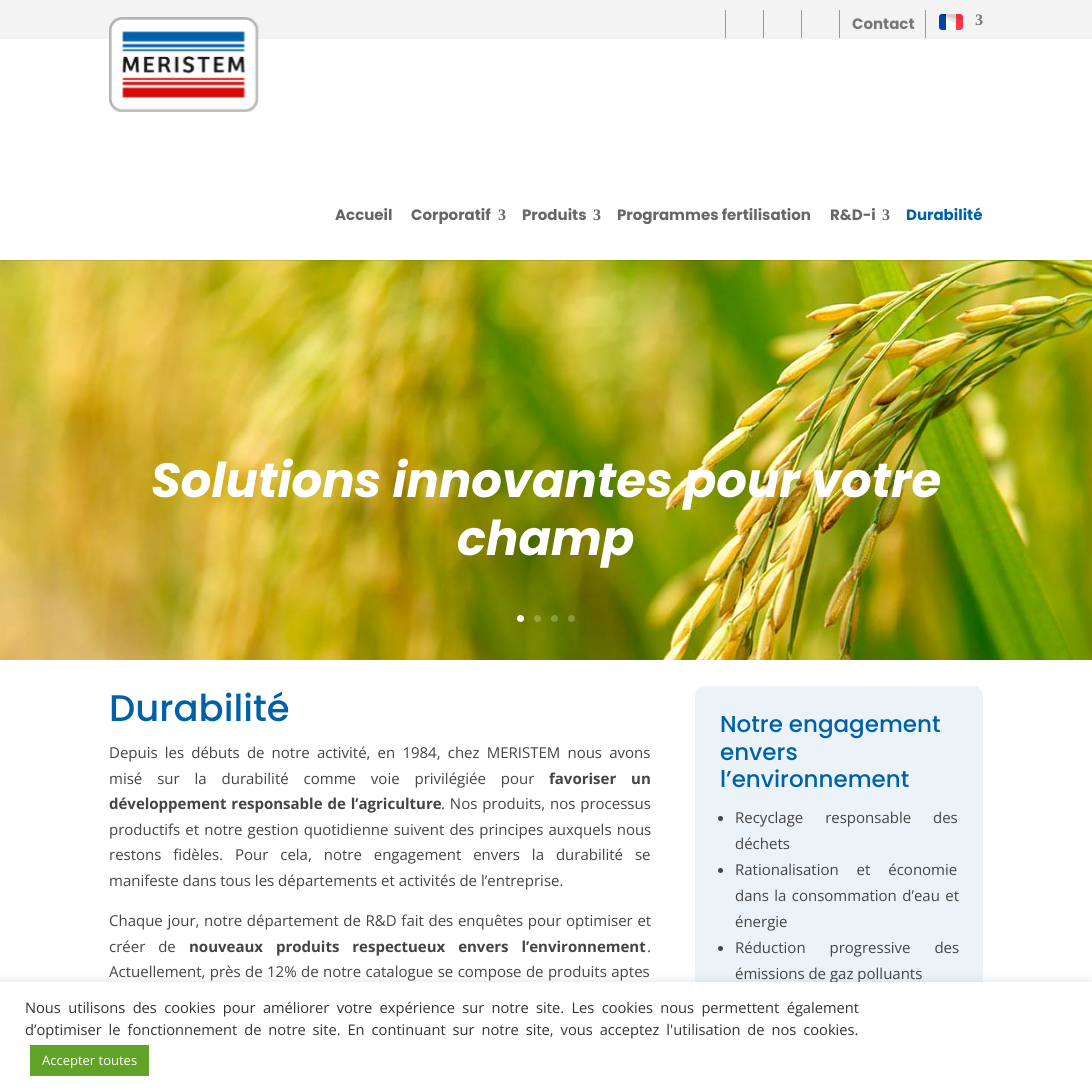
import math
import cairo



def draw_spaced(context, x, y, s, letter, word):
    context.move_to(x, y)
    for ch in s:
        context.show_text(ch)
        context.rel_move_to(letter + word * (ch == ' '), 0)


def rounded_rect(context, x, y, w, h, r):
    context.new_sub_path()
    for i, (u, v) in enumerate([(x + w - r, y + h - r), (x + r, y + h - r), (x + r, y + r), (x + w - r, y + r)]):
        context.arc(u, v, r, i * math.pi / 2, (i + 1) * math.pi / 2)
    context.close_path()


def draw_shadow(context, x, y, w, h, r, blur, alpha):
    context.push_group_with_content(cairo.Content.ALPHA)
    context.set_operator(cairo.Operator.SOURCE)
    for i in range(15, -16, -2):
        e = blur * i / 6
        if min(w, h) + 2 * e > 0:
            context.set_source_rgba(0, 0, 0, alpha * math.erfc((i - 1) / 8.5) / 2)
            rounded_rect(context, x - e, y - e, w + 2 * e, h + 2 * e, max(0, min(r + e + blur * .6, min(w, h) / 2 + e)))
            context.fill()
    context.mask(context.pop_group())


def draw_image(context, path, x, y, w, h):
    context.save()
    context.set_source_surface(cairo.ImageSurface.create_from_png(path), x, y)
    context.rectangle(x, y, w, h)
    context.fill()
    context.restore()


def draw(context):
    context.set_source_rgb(1, 1, 1)
    context.paint()
    context.set_source_rgb(243 / 255, 243 / 255, 243 / 255)
    context.rectangle(0, 0, 1092, 39)
    context.fill()
    draw_image(context, "images/1.png", 109, 17, 150, 95)
    context.set_source_rgb(153 / 255, 153 / 255, 153 / 255)
    context.rectangle(725, 10, 1, 28)
    context.fill()
    context.rectangle(763, 10, 1, 28)
    context.fill()
    context.rectangle(801, 10, 1, 28)
    context.fill()
    context.rectangle(839, 10, 1, 28)
    context.fill()
    context.rectangle(925, 10, 1, 28)
    context.fill()
    draw_image(context, "images/2.png", 939, 14, 24, 16)
    draw_image(context, "images/3.png", 0, 260, 1092, 400)
    context.set_source_rgba(0, 0, 0, 0.1)
    context.rectangle(0, 260, 1092, 1)
    context.fill()
    context.set_source_rgb(1, 1, 1)
    context.arc(520.5, 618.5, 3.5, 0, 2 * math.pi)
    context.fill()
    context.set_source_rgba(1, 1, 1, 0.25)
    context.arc(537.5, 618.5, 3.5, 0, 2 * math.pi)
    context.fill()
    context.arc(554.5, 618.5, 3.5, 0, 2 * math.pi)
    context.fill()
    context.arc(571.5, 618.5, 3.5, 0, 2 * math.pi)
    context.fill()
    context.set_source_rgb(235 / 255, 243 / 255, 248 / 255)
    rounded_rect(context, 695, 686, 288, 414, 10)
    context.fill()
    context.set_source_rgb(68 / 255, 68 / 255, 68 / 255)
    context.arc(720.5, 818.5, 2.5, 0, 2 * math.pi)
    context.fill()
    context.arc(720.5, 870.5, 2.5, 0, 2 * math.pi)
    context.fill()
    context.arc(720.5, 948.5, 2.5, 0, 2 * math.pi)
    context.fill()
    context.set_source_rgb(172 / 255, 171 / 255, 171 / 255)
    draw_shadow(context, 0, 981, 1092, 108, 0, 5, 0.3)
    context.select_font_face("Poppins", cairo.FontSlant.NORMAL, cairo.FontWeight.BOLD)
    context.set_font_size(15)
    context.set_source_rgb(119 / 255, 119 / 255, 119 / 255)
    context.move_to(852, 29)
    context.show_text("Contact")
    context.select_font_face("Liberation Serif", cairo.FontSlant.NORMAL, cairo.FontWeight.BOLD)
    context.set_font_size(16)
    context.move_to(975, 25)
    context.show_text("3")
    context.select_font_face("Poppins", cairo.FontSlant.NORMAL, cairo.FontWeight.BOLD)
    context.set_font_size(15)
    context.set_source_rgb(102 / 255, 102 / 255, 102 / 255)
    context.move_to(335, 220)
    context.show_text("Accueil")
    context.move_to(411, 220)
    context.show_text("Corporatif")
    context.select_font_face("Liberation Serif", cairo.FontSlant.NORMAL, cairo.FontWeight.BOLD)
    context.set_font_size(16)
    context.move_to(498, 220)
    context.show_text("3")
    context.select_font_face("Poppins", cairo.FontSlant.NORMAL, cairo.FontWeight.BOLD)
    context.set_font_size(15)
    context.move_to(522, 220)
    context.show_text("Produits")
    context.select_font_face("Liberation Serif", cairo.FontSlant.NORMAL, cairo.FontWeight.BOLD)
    context.set_font_size(16)
    context.move_to(593, 220)
    context.show_text("3")
    context.select_font_face("Poppins", cairo.FontSlant.NORMAL, cairo.FontWeight.BOLD)
    context.set_font_size(15)
    context.move_to(617, 220)
    context.show_text("Programmes fertilisation")
    context.move_to(830, 220)
    context.show_text("R&D-i")
    context.select_font_face("Liberation Serif", cairo.FontSlant.NORMAL, cairo.FontWeight.BOLD)
    context.set_font_size(16)
    context.move_to(882, 220)
    context.show_text("3")
    context.select_font_face("Poppins", cairo.FontSlant.NORMAL, cairo.FontWeight.BOLD)
    context.set_font_size(15)
    context.set_source_rgb(0, 97 / 255, 167 / 255)
    context.move_to(906, 220)
    context.show_text("Durabilité")
    context.select_font_face("Poppins", cairo.FontSlant.ITALIC, cairo.FontWeight.BOLD)
    context.set_font_size(48)
    context.set_source_rgb(1, 1, 1)
    context.move_to(151, 497)
    context.show_text("Solutions innovantes pour votre")
    context.move_to(457, 555)
    context.show_text("champ")
    context.select_font_face("Poppins Medium")
    context.set_font_size(37)
    context.set_source_rgb(0, 97 / 255, 167 / 255)
    context.move_to(109, 721)
    context.show_text("Durabilité")
    context.select_font_face("Open Sans")
    context.set_font_size(15)
    context.set_source_rgb(68 / 255, 68 / 255, 68 / 255)
    draw_spaced(context, 109, 758, "Depuis les débuts de notre activité, en 1984, chez MERISTEM nous avons", 0, 3.25)
    draw_spaced(context, 109, 784, "misé sur la durabilité comme voie privilégiée pour", 0, 11)
    context.select_font_face("Open Sans", cairo.FontSlant.NORMAL, cairo.FontWeight.BOLD)
    draw_spaced(context, 549, 784, "favoriser un", 0, 11)
    draw_spaced(context, 109, 809, "développement responsable de l’agriculture", 0, 1)
    context.select_font_face("Open Sans")
    draw_spaced(context, 441, 809, ". Nos produits, nos processus", 0, 1)
    draw_spaced(context, 109, 835, "productifs et notre gestion quotidienne suivent des principes auxquels nous", 0, 1.25)
    draw_spaced(context, 109, 860, "restons fidèles. Pour cela, notre engagement envers la durabilité se", 0, 8)
    context.move_to(109, 886)
    context.show_text("manifeste dans tous les départements et activités de l’entreprise.")
    draw_spaced(context, 109, 926, "Chaque jour, notre département de R&D fait des enquêtes pour optimiser et", 0, 0.75)
    draw_spaced(context, 109, 952, "créer de", 0, 9)
    context.select_font_face("Open Sans", cairo.FontSlant.NORMAL, cairo.FontWeight.BOLD)
    draw_spaced(context, 189, 952, "nouveaux produits respectueux envers l’environnement", 0, 9)
    context.select_font_face("Open Sans")
    context.move_to(647, 952)
    context.show_text(".")
    draw_spaced(context, 109, 977, "Actuellement, près de 12% de notre catalogue se compose de produits aptes", 0, 0.5)
    context.select_font_face("Poppins Medium")
    context.set_font_size(23)
    context.set_source_rgb(0, 97 / 255, 167 / 255)
    context.move_to(720, 732)
    context.show_text("Notre engagement")
    context.move_to(720, 760)
    context.show_text("envers")
    context.move_to(720, 787)
    context.show_text("l’environnement")
    context.select_font_face("Open Sans")
    context.set_font_size(15)
    context.set_source_rgb(68 / 255, 68 / 255, 68 / 255)
    draw_spaced(context, 735, 823, "Recyclage responsable des", 0, 18)
    context.move_to(735, 849)
    context.show_text("déchets")
    draw_spaced(context, 735, 875, "Rationalisation et économie", 0, 14)
    draw_spaced(context, 735, 901, "dans la consommation d’eau et", 0, 1.5)
    context.move_to(735, 927)
    context.show_text("énergie")
    draw_spaced(context, 735, 953, "Réduction progressive des", 0, 20)
    context.move_to(735, 979)
    context.show_text("émissions de gaz polluants")
    context.set_source_rgb(1, 1, 1)
    context.rectangle(0, 982, 1092, 108)
    context.fill()
    context.set_font_size(14.67)
    context.set_source_rgb(51 / 255, 51 / 255, 51 / 255)
    draw_spaced(context, 25, 1013, "Nous utilisons des cookies pour améliorer votre expérience sur notre site. Les cookies nous permettent également", 0, 3.5)
    draw_spaced(context, 25, 1035, "d’optimiser le fonctionnement de notre site. En continuant sur notre site, vous acceptez l'utilisation de nos cookies.", 0, 3.1)
    context.set_source_rgb(97 / 255, 162 / 255, 41 / 255)
    context.rectangle(30, 1045, 119, 31)
    context.fill()
    context.set_font_size(13)
    context.set_source_rgb(1, 1, 1)
    context.move_to(42, 1065)
    context.show_text("Accepter toutes")


surface = cairo.ImageSurface(cairo.Format.RGB24, 1092, 1090)
context = cairo.Context(surface)
options = cairo.FontOptions()
options.set_hint_metrics(cairo.HintMetrics.OFF)
options.set_hint_style(cairo.HintStyle.NONE)
context.set_font_options(options)
context.set_miter_limit(4)
draw(context)
surface.write_to_png("out.png")
